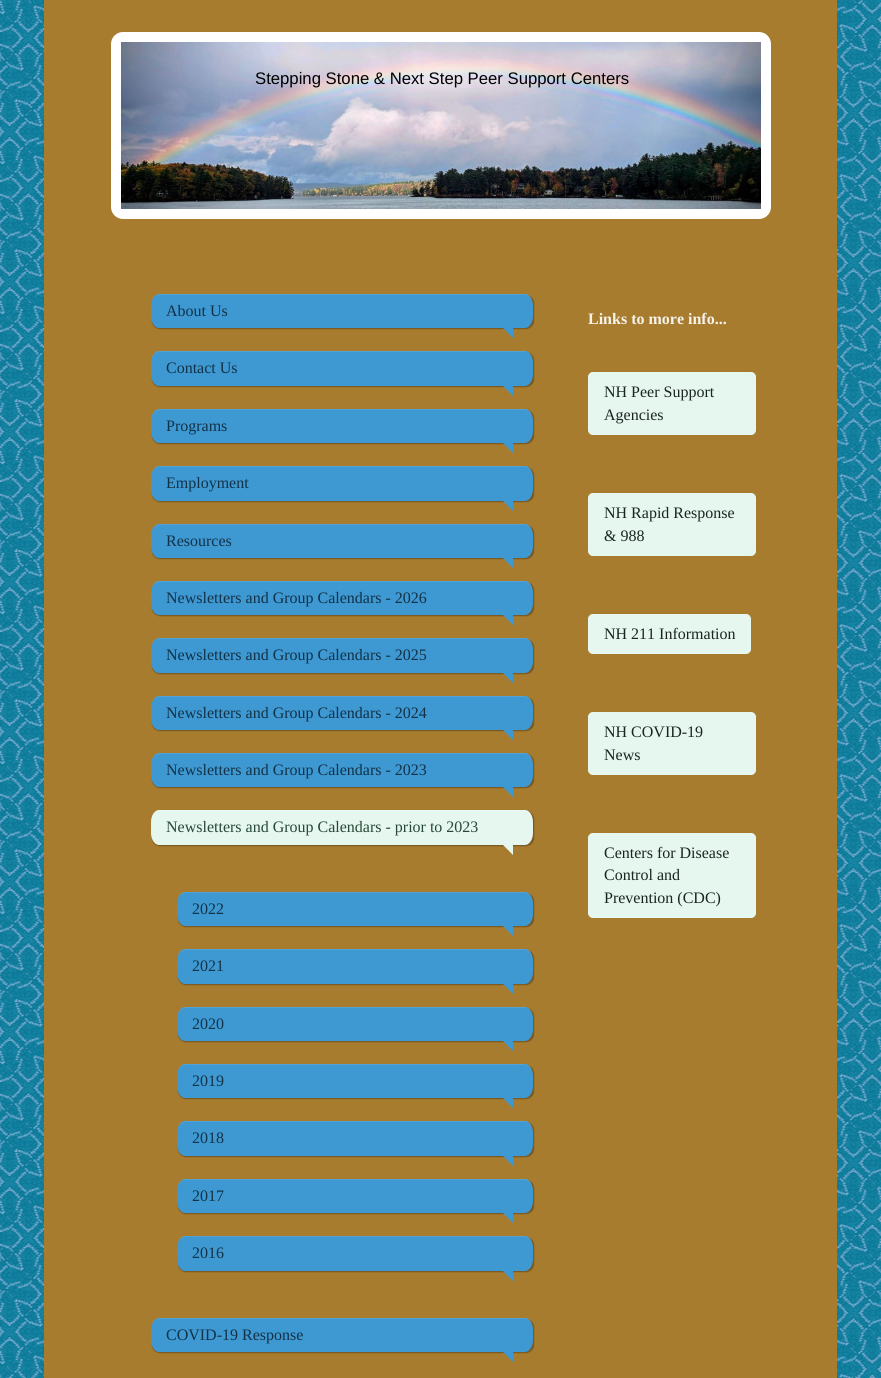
import math
import cairo



def rounded_rect(context, x, y, w, h, r):
    context.new_sub_path()
    for i, (u, v) in enumerate([(x + w - r, y + h - r), (x + r, y + h - r), (x + r, y + r), (x + w - r, y + r)]):
        context.arc(u, v, r, i * math.pi / 2, (i + 1) * math.pi / 2)
    context.close_path()


def draw_shadow(context, x, y, w, h, r, blur, alpha):
    context.push_group_with_content(cairo.Content.ALPHA)
    context.set_operator(cairo.Operator.SOURCE)
    for i in range(15, -16, -2):
        e = blur * i / 6
        if min(w, h) + 2 * e > 0:
            context.set_source_rgba(0, 0, 0, alpha * math.erfc((i - 1) / 8.5) / 2)
            rounded_rect(context, x - e, y - e, w + 2 * e, h + 2 * e, max(0, min(r + e + blur * .6, min(w, h) / 2 + e)))
            context.fill()
    context.mask(context.pop_group())


def draw_image(context, path, x, y, w, h):
    context.save()
    context.set_source_surface(cairo.ImageSurface.create_from_png(path), x, y)
    context.rectangle(x, y, w, h)
    context.fill()
    context.restore()


def draw(context):
    context.set_source_rgb(1, 1, 1)
    context.paint()
    draw_image(context, "images/1.png", 0, 0, 881, 1378)
    context.set_source_rgb(167 / 255, 124 / 255, 47 / 255)
    context.rectangle(44, 0, 793, 1378)
    context.fill()
    rounded_rect(context, 116, 37, 650, 177, 7)
    context.set_source_rgb(1, 1, 1)
    context.set_line_width(10)
    context.stroke()
    draw_image(context, "images/2.png", 121, 42, 640, 167)
    context.set_source_rgb(0, 0, 0)
    draw_shadow(context, 152, 295, 382, 34, 8, 0.5, 0.3)
    context.set_source_rgb(62 / 255, 152 / 255, 210 / 255)
    context.new_path()
    context.move_to(159, 294)
    context.line_to(525, 294)
    context.curve_to(529, 294, 533, 299, 533, 306)
    context.line_to(533, 316)
    context.curve_to(533, 323, 529, 328, 525, 328)
    context.line_to(159, 328)
    context.curve_to(155, 328, 151, 323, 151, 316)
    context.line_to(151, 306)
    context.curve_to(151, 299, 155, 294, 159, 294)
    context.close_path()
    context.fill()
    context.set_source_rgba(1, 1, 1, 0.1)
    context.new_path()
    context.move_to(159, 295)
    context.line_to(525, 295)
    context.curve_to(529, 295, 533, 300, 533, 307)
    context.line_to(533, 306)
    context.curve_to(533, 299, 529, 294, 525, 294)
    context.line_to(159, 294)
    context.curve_to(155, 294, 151, 299, 151, 306)
    context.line_to(151, 307)
    context.curve_to(151, 300, 155, 295, 159, 295)
    context.close_path()
    context.fill()
    context.set_source_rgb(62 / 255, 152 / 255, 210 / 255)
    context.new_path()
    context.move_to(503, 328)
    context.line_to(513, 328)
    context.line_to(513, 338)
    context.close_path()
    context.fill()
    context.set_source_rgb(0, 0, 0)
    draw_shadow(context, 152, 352, 382, 35, 8, 0.5, 0.3)
    context.set_source_rgb(62 / 255, 152 / 255, 210 / 255)
    context.new_path()
    context.move_to(159, 351)
    context.line_to(525, 351)
    context.curve_to(529, 351, 533, 356, 533, 363)
    context.line_to(533, 374)
    context.curve_to(533, 381, 529, 386, 525, 386)
    context.line_to(159, 386)
    context.curve_to(155, 386, 151, 381, 151, 374)
    context.line_to(151, 363)
    context.curve_to(151, 356, 155, 351, 159, 351)
    context.close_path()
    context.fill()
    context.set_source_rgba(1, 1, 1, 0.1)
    context.new_path()
    context.move_to(159, 352)
    context.line_to(525, 352)
    context.curve_to(529, 352, 533, 357, 533, 364)
    context.line_to(533, 363)
    context.curve_to(533, 356, 529, 351, 525, 351)
    context.line_to(159, 351)
    context.curve_to(155, 351, 151, 356, 151, 363)
    context.line_to(151, 364)
    context.curve_to(151, 357, 155, 352, 159, 352)
    context.close_path()
    context.fill()
    context.set_source_rgb(62 / 255, 152 / 255, 210 / 255)
    context.new_path()
    context.move_to(503, 386)
    context.line_to(513, 386)
    context.line_to(513, 396)
    context.close_path()
    context.fill()
    context.set_source_rgb(0, 0, 0)
    draw_shadow(context, 152, 410, 382, 34, 8, 0.5, 0.3)
    context.set_source_rgb(62 / 255, 152 / 255, 210 / 255)
    context.new_path()
    context.move_to(159, 409)
    context.line_to(525, 409)
    context.curve_to(529, 409, 533, 414, 533, 421)
    context.line_to(533, 431)
    context.curve_to(533, 438, 529, 443, 525, 443)
    context.line_to(159, 443)
    context.curve_to(155, 443, 151, 438, 151, 431)
    context.line_to(151, 421)
    context.curve_to(151, 414, 155, 409, 159, 409)
    context.close_path()
    context.fill()
    context.set_source_rgba(1, 1, 1, 0.1)
    context.new_path()
    context.move_to(159, 410)
    context.line_to(525, 410)
    context.curve_to(529, 410, 533, 415, 533, 422)
    context.line_to(533, 421)
    context.curve_to(533, 414, 529, 409, 525, 409)
    context.line_to(159, 409)
    context.curve_to(155, 409, 151, 414, 151, 421)
    context.line_to(151, 422)
    context.curve_to(151, 415, 155, 410, 159, 410)
    context.close_path()
    context.fill()
    context.set_source_rgb(62 / 255, 152 / 255, 210 / 255)
    context.new_path()
    context.move_to(503, 443)
    context.line_to(513, 443)
    context.line_to(513, 453)
    context.close_path()
    context.fill()
    context.set_source_rgb(0, 0, 0)
    draw_shadow(context, 152, 467, 382, 35, 8, 0.5, 0.3)
    context.set_source_rgb(62 / 255, 152 / 255, 210 / 255)
    context.new_path()
    context.move_to(159, 466)
    context.line_to(525, 466)
    context.curve_to(529, 466, 533, 471, 533, 478)
    context.line_to(533, 489)
    context.curve_to(533, 496, 529, 501, 525, 501)
    context.line_to(159, 501)
    context.curve_to(155, 501, 151, 496, 151, 489)
    context.line_to(151, 478)
    context.curve_to(151, 471, 155, 466, 159, 466)
    context.close_path()
    context.fill()
    context.set_source_rgba(1, 1, 1, 0.1)
    context.new_path()
    context.move_to(159, 467)
    context.line_to(525, 467)
    context.curve_to(529, 467, 533, 472, 533, 479)
    context.line_to(533, 478)
    context.curve_to(533, 471, 529, 466, 525, 466)
    context.line_to(159, 466)
    context.curve_to(155, 466, 151, 471, 151, 478)
    context.line_to(151, 479)
    context.curve_to(151, 472, 155, 467, 159, 467)
    context.close_path()
    context.fill()
    context.set_source_rgb(62 / 255, 152 / 255, 210 / 255)
    context.new_path()
    context.move_to(503, 501)
    context.line_to(513, 501)
    context.line_to(513, 511)
    context.close_path()
    context.fill()
    context.set_source_rgb(0, 0, 0)
    draw_shadow(context, 152, 525, 382, 34, 8, 0.5, 0.3)
    context.set_source_rgb(62 / 255, 152 / 255, 210 / 255)
    context.new_path()
    context.move_to(159, 524)
    context.line_to(525, 524)
    context.curve_to(529, 524, 533, 529, 533, 536)
    context.line_to(533, 546)
    context.curve_to(533, 553, 529, 558, 525, 558)
    context.line_to(159, 558)
    context.curve_to(155, 558, 151, 553, 151, 546)
    context.line_to(151, 536)
    context.curve_to(151, 529, 155, 524, 159, 524)
    context.close_path()
    context.fill()
    context.set_source_rgba(1, 1, 1, 0.1)
    context.new_path()
    context.move_to(159, 525)
    context.line_to(525, 525)
    context.curve_to(529, 525, 533, 530, 533, 537)
    context.line_to(533, 536)
    context.curve_to(533, 529, 529, 524, 525, 524)
    context.line_to(159, 524)
    context.curve_to(155, 524, 151, 529, 151, 536)
    context.line_to(151, 537)
    context.curve_to(151, 530, 155, 525, 159, 525)
    context.close_path()
    context.fill()
    context.set_source_rgb(62 / 255, 152 / 255, 210 / 255)
    context.new_path()
    context.move_to(503, 558)
    context.line_to(513, 558)
    context.line_to(513, 568)
    context.close_path()
    context.fill()
    context.set_source_rgb(0, 0, 0)
    draw_shadow(context, 152, 582, 382, 34, 8, 0.5, 0.3)
    context.set_source_rgb(62 / 255, 152 / 255, 210 / 255)
    context.new_path()
    context.move_to(159, 581)
    context.line_to(525, 581)
    context.curve_to(529, 581, 533, 586, 533, 593)
    context.line_to(533, 603)
    context.curve_to(533, 610, 529, 615, 525, 615)
    context.line_to(159, 615)
    context.curve_to(155, 615, 151, 610, 151, 603)
    context.line_to(151, 593)
    context.curve_to(151, 586, 155, 581, 159, 581)
    context.close_path()
    context.fill()
    context.set_source_rgba(1, 1, 1, 0.1)
    context.new_path()
    context.move_to(159, 582)
    context.line_to(525, 582)
    context.curve_to(529, 582, 533, 587, 533, 594)
    context.line_to(533, 593)
    context.curve_to(533, 586, 529, 581, 525, 581)
    context.line_to(159, 581)
    context.curve_to(155, 581, 151, 586, 151, 593)
    context.line_to(151, 594)
    context.curve_to(151, 587, 155, 582, 159, 582)
    context.close_path()
    context.fill()
    context.set_source_rgb(62 / 255, 152 / 255, 210 / 255)
    context.new_path()
    context.move_to(503, 615)
    context.line_to(513, 615)
    context.line_to(513, 625)
    context.close_path()
    context.fill()
    context.set_source_rgb(0, 0, 0)
    draw_shadow(context, 152, 639, 382, 35, 8, 0.5, 0.3)
    context.set_source_rgb(62 / 255, 152 / 255, 210 / 255)
    context.new_path()
    context.move_to(159, 638)
    context.line_to(525, 638)
    context.curve_to(529, 638, 533, 643, 533, 650)
    context.line_to(533, 661)
    context.curve_to(533, 668, 529, 673, 525, 673)
    context.line_to(159, 673)
    context.curve_to(155, 673, 151, 668, 151, 661)
    context.line_to(151, 650)
    context.curve_to(151, 643, 155, 638, 159, 638)
    context.close_path()
    context.fill()
    context.set_source_rgba(1, 1, 1, 0.1)
    context.new_path()
    context.move_to(159, 639)
    context.line_to(525, 639)
    context.curve_to(529, 639, 533, 644, 533, 651)
    context.line_to(533, 650)
    context.curve_to(533, 643, 529, 638, 525, 638)
    context.line_to(159, 638)
    context.curve_to(155, 638, 151, 643, 151, 650)
    context.line_to(151, 651)
    context.curve_to(151, 644, 155, 639, 159, 639)
    context.close_path()
    context.fill()
    context.set_source_rgb(62 / 255, 152 / 255, 210 / 255)
    context.new_path()
    context.move_to(503, 673)
    context.line_to(513, 673)
    context.line_to(513, 683)
    context.close_path()
    context.fill()
    context.set_source_rgb(0, 0, 0)
    draw_shadow(context, 152, 697, 382, 34, 8, 0.5, 0.3)
    context.set_source_rgb(62 / 255, 152 / 255, 210 / 255)
    context.new_path()
    context.move_to(159, 696)
    context.line_to(525, 696)
    context.curve_to(529, 696, 533, 701, 533, 708)
    context.line_to(533, 718)
    context.curve_to(533, 725, 529, 730, 525, 730)
    context.line_to(159, 730)
    context.curve_to(155, 730, 151, 725, 151, 718)
    context.line_to(151, 708)
    context.curve_to(151, 701, 155, 696, 159, 696)
    context.close_path()
    context.fill()
    context.set_source_rgba(1, 1, 1, 0.1)
    context.new_path()
    context.move_to(159, 697)
    context.line_to(525, 697)
    context.curve_to(529, 697, 533, 702, 533, 709)
    context.line_to(533, 708)
    context.curve_to(533, 701, 529, 696, 525, 696)
    context.line_to(159, 696)
    context.curve_to(155, 696, 151, 701, 151, 708)
    context.line_to(151, 709)
    context.curve_to(151, 702, 155, 697, 159, 697)
    context.close_path()
    context.fill()
    context.set_source_rgb(62 / 255, 152 / 255, 210 / 255)
    context.new_path()
    context.move_to(503, 730)
    context.line_to(513, 730)
    context.line_to(513, 740)
    context.close_path()
    context.fill()
    context.set_source_rgb(0, 0, 0)
    draw_shadow(context, 152, 754, 382, 34, 8, 0.5, 0.3)
    context.set_source_rgb(62 / 255, 152 / 255, 210 / 255)
    context.new_path()
    context.move_to(159, 753)
    context.line_to(525, 753)
    context.curve_to(529, 753, 533, 758, 533, 765)
    context.line_to(533, 775)
    context.curve_to(533, 782, 529, 787, 525, 787)
    context.line_to(159, 787)
    context.curve_to(155, 787, 151, 782, 151, 775)
    context.line_to(151, 765)
    context.curve_to(151, 758, 155, 753, 159, 753)
    context.close_path()
    context.fill()
    context.set_source_rgba(1, 1, 1, 0.1)
    context.new_path()
    context.move_to(159, 754)
    context.line_to(525, 754)
    context.curve_to(529, 754, 533, 759, 533, 766)
    context.line_to(533, 765)
    context.curve_to(533, 758, 529, 753, 525, 753)
    context.line_to(159, 753)
    context.curve_to(155, 753, 151, 758, 151, 765)
    context.line_to(151, 766)
    context.curve_to(151, 759, 155, 754, 159, 754)
    context.close_path()
    context.fill()
    context.set_source_rgb(62 / 255, 152 / 255, 210 / 255)
    context.new_path()
    context.move_to(503, 787)
    context.line_to(513, 787)
    context.line_to(513, 797)
    context.close_path()
    context.fill()
    context.set_source_rgb(0, 0, 0)
    draw_shadow(context, 152, 811, 382, 35, 8, 0.5, 0.3)
    context.set_source_rgb(230 / 255, 247 / 255, 239 / 255)
    context.new_path()
    context.move_to(159, 810)
    context.line_to(525, 810)
    context.curve_to(529, 810, 533, 815, 533, 822)
    context.line_to(533, 833)
    context.curve_to(533, 840, 529, 845, 525, 845)
    context.line_to(159, 845)
    context.curve_to(155, 845, 151, 840, 151, 833)
    context.line_to(151, 822)
    context.curve_to(151, 815, 155, 810, 159, 810)
    context.close_path()
    context.fill()
    context.set_source_rgba(1, 1, 1, 0.1)
    context.new_path()
    context.move_to(159, 811)
    context.line_to(525, 811)
    context.curve_to(529, 811, 533, 816, 533, 823)
    context.line_to(533, 822)
    context.curve_to(533, 815, 529, 810, 525, 810)
    context.line_to(159, 810)
    context.curve_to(155, 810, 151, 815, 151, 822)
    context.line_to(151, 823)
    context.curve_to(151, 816, 155, 811, 159, 811)
    context.close_path()
    context.fill()
    context.set_source_rgb(230 / 255, 247 / 255, 239 / 255)
    context.new_path()
    context.move_to(503, 845)
    context.line_to(513, 845)
    context.line_to(513, 855)
    context.close_path()
    context.fill()
    context.set_source_rgb(0, 0, 0)
    draw_shadow(context, 178, 893, 356, 34, 8, 0.5, 0.3)
    context.set_source_rgb(62 / 255, 152 / 255, 210 / 255)
    context.new_path()
    context.move_to(185, 892)
    context.line_to(525, 892)
    context.curve_to(529, 892, 533, 897, 533, 904)
    context.line_to(533, 914)
    context.curve_to(533, 921, 529, 926, 525, 926)
    context.line_to(185, 926)
    context.curve_to(181, 926, 177, 921, 177, 914)
    context.line_to(177, 904)
    context.curve_to(177, 897, 181, 892, 185, 892)
    context.close_path()
    context.fill()
    context.set_source_rgba(1, 1, 1, 0.1)
    context.new_path()
    context.move_to(185, 893)
    context.line_to(525, 893)
    context.curve_to(529, 893, 533, 898, 533, 905)
    context.line_to(533, 904)
    context.curve_to(533, 897, 529, 892, 525, 892)
    context.line_to(185, 892)
    context.curve_to(181, 892, 177, 897, 177, 904)
    context.line_to(177, 905)
    context.curve_to(177, 898, 181, 893, 185, 893)
    context.close_path()
    context.fill()
    context.set_source_rgb(62 / 255, 152 / 255, 210 / 255)
    context.new_path()
    context.move_to(503, 926)
    context.line_to(513, 926)
    context.line_to(513, 936)
    context.close_path()
    context.fill()
    context.set_source_rgb(0, 0, 0)
    draw_shadow(context, 178, 950, 356, 35, 8, 0.5, 0.3)
    context.set_source_rgb(62 / 255, 152 / 255, 210 / 255)
    context.new_path()
    context.move_to(185, 949)
    context.line_to(525, 949)
    context.curve_to(529, 949, 533, 954, 533, 961)
    context.line_to(533, 972)
    context.curve_to(533, 979, 529, 984, 525, 984)
    context.line_to(185, 984)
    context.curve_to(181, 984, 177, 979, 177, 972)
    context.line_to(177, 961)
    context.curve_to(177, 954, 181, 949, 185, 949)
    context.close_path()
    context.fill()
    context.set_source_rgba(1, 1, 1, 0.1)
    context.new_path()
    context.move_to(185, 950)
    context.line_to(525, 950)
    context.curve_to(529, 950, 533, 955, 533, 962)
    context.line_to(533, 961)
    context.curve_to(533, 954, 529, 949, 525, 949)
    context.line_to(185, 949)
    context.curve_to(181, 949, 177, 954, 177, 961)
    context.line_to(177, 962)
    context.curve_to(177, 955, 181, 950, 185, 950)
    context.close_path()
    context.fill()
    context.set_source_rgb(62 / 255, 152 / 255, 210 / 255)
    context.new_path()
    context.move_to(503, 984)
    context.line_to(513, 984)
    context.line_to(513, 994)
    context.close_path()
    context.fill()
    context.set_source_rgb(0, 0, 0)
    draw_shadow(context, 178, 1008, 356, 34, 8, 0.5, 0.3)
    context.set_source_rgb(62 / 255, 152 / 255, 210 / 255)
    context.new_path()
    context.move_to(185, 1007)
    context.line_to(525, 1007)
    context.curve_to(529, 1007, 533, 1012, 533, 1019)
    context.line_to(533, 1029)
    context.curve_to(533, 1036, 529, 1041, 525, 1041)
    context.line_to(185, 1041)
    context.curve_to(181, 1041, 177, 1036, 177, 1029)
    context.line_to(177, 1019)
    context.curve_to(177, 1012, 181, 1007, 185, 1007)
    context.close_path()
    context.fill()
    context.set_source_rgba(1, 1, 1, 0.1)
    context.new_path()
    context.move_to(185, 1008)
    context.line_to(525, 1008)
    context.curve_to(529, 1008, 533, 1013, 533, 1020)
    context.line_to(533, 1019)
    context.curve_to(533, 1012, 529, 1007, 525, 1007)
    context.line_to(185, 1007)
    context.curve_to(181, 1007, 177, 1012, 177, 1019)
    context.line_to(177, 1020)
    context.curve_to(177, 1013, 181, 1008, 185, 1008)
    context.close_path()
    context.fill()
    context.set_source_rgb(62 / 255, 152 / 255, 210 / 255)
    context.new_path()
    context.move_to(503, 1041)
    context.line_to(513, 1041)
    context.line_to(513, 1051)
    context.close_path()
    context.fill()
    context.set_source_rgb(0, 0, 0)
    draw_shadow(context, 178, 1065, 356, 34, 8, 0.5, 0.3)
    context.set_source_rgb(62 / 255, 152 / 255, 210 / 255)
    context.new_path()
    context.move_to(185, 1064)
    context.line_to(525, 1064)
    context.curve_to(529, 1064, 533, 1069, 533, 1076)
    context.line_to(533, 1086)
    context.curve_to(533, 1093, 529, 1098, 525, 1098)
    context.line_to(185, 1098)
    context.curve_to(181, 1098, 177, 1093, 177, 1086)
    context.line_to(177, 1076)
    context.curve_to(177, 1069, 181, 1064, 185, 1064)
    context.close_path()
    context.fill()
    context.set_source_rgba(1, 1, 1, 0.1)
    context.new_path()
    context.move_to(185, 1065)
    context.line_to(525, 1065)
    context.curve_to(529, 1065, 533, 1070, 533, 1077)
    context.line_to(533, 1076)
    context.curve_to(533, 1069, 529, 1064, 525, 1064)
    context.line_to(185, 1064)
    context.curve_to(181, 1064, 177, 1069, 177, 1076)
    context.line_to(177, 1077)
    context.curve_to(177, 1070, 181, 1065, 185, 1065)
    context.close_path()
    context.fill()
    context.set_source_rgb(62 / 255, 152 / 255, 210 / 255)
    context.new_path()
    context.move_to(503, 1098)
    context.line_to(513, 1098)
    context.line_to(513, 1108)
    context.close_path()
    context.fill()
    context.set_source_rgb(0, 0, 0)
    draw_shadow(context, 178, 1122, 356, 35, 8, 0.5, 0.3)
    context.set_source_rgb(62 / 255, 152 / 255, 210 / 255)
    context.new_path()
    context.move_to(185, 1121)
    context.line_to(525, 1121)
    context.curve_to(529, 1121, 533, 1126, 533, 1133)
    context.line_to(533, 1144)
    context.curve_to(533, 1151, 529, 1156, 525, 1156)
    context.line_to(185, 1156)
    context.curve_to(181, 1156, 177, 1151, 177, 1144)
    context.line_to(177, 1133)
    context.curve_to(177, 1126, 181, 1121, 185, 1121)
    context.close_path()
    context.fill()
    context.set_source_rgba(1, 1, 1, 0.1)
    context.new_path()
    context.move_to(185, 1122)
    context.line_to(525, 1122)
    context.curve_to(529, 1122, 533, 1127, 533, 1134)
    context.line_to(533, 1133)
    context.curve_to(533, 1126, 529, 1121, 525, 1121)
    context.line_to(185, 1121)
    context.curve_to(181, 1121, 177, 1126, 177, 1133)
    context.line_to(177, 1134)
    context.curve_to(177, 1127, 181, 1122, 185, 1122)
    context.close_path()
    context.fill()
    context.set_source_rgb(62 / 255, 152 / 255, 210 / 255)
    context.new_path()
    context.move_to(503, 1156)
    context.line_to(513, 1156)
    context.line_to(513, 1166)
    context.close_path()
    context.fill()
    context.set_source_rgb(0, 0, 0)
    draw_shadow(context, 178, 1180, 356, 34, 8, 0.5, 0.3)
    context.set_source_rgb(62 / 255, 152 / 255, 210 / 255)
    context.new_path()
    context.move_to(185, 1179)
    context.line_to(525, 1179)
    context.curve_to(529, 1179, 533, 1184, 533, 1191)
    context.line_to(533, 1201)
    context.curve_to(533, 1208, 529, 1213, 525, 1213)
    context.line_to(185, 1213)
    context.curve_to(181, 1213, 177, 1208, 177, 1201)
    context.line_to(177, 1191)
    context.curve_to(177, 1184, 181, 1179, 185, 1179)
    context.close_path()
    context.fill()
    context.set_source_rgba(1, 1, 1, 0.1)
    context.new_path()
    context.move_to(185, 1180)
    context.line_to(525, 1180)
    context.curve_to(529, 1180, 533, 1185, 533, 1192)
    context.line_to(533, 1191)
    context.curve_to(533, 1184, 529, 1179, 525, 1179)
    context.line_to(185, 1179)
    context.curve_to(181, 1179, 177, 1184, 177, 1191)
    context.line_to(177, 1192)
    context.curve_to(177, 1185, 181, 1180, 185, 1180)
    context.close_path()
    context.fill()
    context.set_source_rgb(62 / 255, 152 / 255, 210 / 255)
    context.new_path()
    context.move_to(503, 1213)
    context.line_to(513, 1213)
    context.line_to(513, 1223)
    context.close_path()
    context.fill()
    context.set_source_rgb(0, 0, 0)
    draw_shadow(context, 178, 1237, 356, 35, 8, 0.5, 0.3)
    context.set_source_rgb(62 / 255, 152 / 255, 210 / 255)
    context.new_path()
    context.move_to(185, 1236)
    context.line_to(525, 1236)
    context.curve_to(529, 1236, 533, 1241, 533, 1248)
    context.line_to(533, 1259)
    context.curve_to(533, 1266, 529, 1271, 525, 1271)
    context.line_to(185, 1271)
    context.curve_to(181, 1271, 177, 1266, 177, 1259)
    context.line_to(177, 1248)
    context.curve_to(177, 1241, 181, 1236, 185, 1236)
    context.close_path()
    context.fill()
    context.set_source_rgba(1, 1, 1, 0.1)
    context.new_path()
    context.move_to(185, 1237)
    context.line_to(525, 1237)
    context.curve_to(529, 1237, 533, 1242, 533, 1249)
    context.line_to(533, 1248)
    context.curve_to(533, 1241, 529, 1236, 525, 1236)
    context.line_to(185, 1236)
    context.curve_to(181, 1236, 177, 1241, 177, 1248)
    context.line_to(177, 1249)
    context.curve_to(177, 1242, 181, 1237, 185, 1237)
    context.close_path()
    context.fill()
    context.set_source_rgb(62 / 255, 152 / 255, 210 / 255)
    context.new_path()
    context.move_to(503, 1271)
    context.line_to(513, 1271)
    context.line_to(513, 1281)
    context.close_path()
    context.fill()
    context.set_source_rgb(0, 0, 0)
    draw_shadow(context, 152, 1319, 382, 34, 8, 0.5, 0.3)
    context.set_source_rgb(62 / 255, 152 / 255, 210 / 255)
    context.new_path()
    context.move_to(159, 1318)
    context.line_to(525, 1318)
    context.curve_to(529, 1318, 533, 1323, 533, 1330)
    context.line_to(533, 1340)
    context.curve_to(533, 1347, 529, 1352, 525, 1352)
    context.line_to(159, 1352)
    context.curve_to(155, 1352, 151, 1347, 151, 1340)
    context.line_to(151, 1330)
    context.curve_to(151, 1323, 155, 1318, 159, 1318)
    context.close_path()
    context.fill()
    context.set_source_rgba(1, 1, 1, 0.1)
    context.new_path()
    context.move_to(159, 1319)
    context.line_to(525, 1319)
    context.curve_to(529, 1319, 533, 1324, 533, 1331)
    context.line_to(533, 1330)
    context.curve_to(533, 1323, 529, 1318, 525, 1318)
    context.line_to(159, 1318)
    context.curve_to(155, 1318, 151, 1323, 151, 1330)
    context.line_to(151, 1331)
    context.curve_to(151, 1324, 155, 1319, 159, 1319)
    context.close_path()
    context.fill()
    context.set_source_rgb(62 / 255, 152 / 255, 210 / 255)
    context.new_path()
    context.move_to(503, 1352)
    context.line_to(513, 1352)
    context.line_to(513, 1362)
    context.close_path()
    context.fill()
    context.set_source_rgb(230 / 255, 247 / 255, 239 / 255)
    rounded_rect(context, 588.5, 372.5, 167, 62, 4.5)
    context.fill_preserve()
    context.set_line_width(1)
    context.stroke()
    rounded_rect(context, 588.5, 493.5, 167, 62, 4.5)
    context.fill_preserve()
    context.stroke()
    rounded_rect(context, 588.5, 614.5, 162, 39, 4.5)
    context.fill_preserve()
    context.stroke()
    rounded_rect(context, 588.5, 712.5, 167, 62, 4.5)
    context.fill_preserve()
    context.stroke()
    rounded_rect(context, 588.5, 833.5, 167, 84, 4.5)
    context.fill_preserve()
    context.stroke()
    context.select_font_face("Liberation Sans")
    context.set_font_size(16.7)
    context.set_source_rgb(0, 0, 0)
    context.move_to(255, 84)
    context.show_text("Stepping Stone & Next Step Peer Support Centers")
    context.select_font_face("Liberation Serif")
    context.set_font_size(16)
    context.set_source_rgb(18 / 255, 50 / 255, 71 / 255)
    context.move_to(166, 316)
    context.show_text("About Us")
    context.move_to(166, 373)
    context.show_text("Contact Us")
    context.move_to(166, 431)
    context.show_text("Programs")
    context.move_to(166, 488)
    context.show_text("Employment")
    context.move_to(166, 546)
    context.show_text("Resources")
    context.move_to(166, 603)
    context.show_text("Newsletters and Group Calendars - 2026")
    context.move_to(166, 660)
    context.show_text("Newsletters and Group Calendars - 2025")
    context.move_to(166, 718)
    context.show_text("Newsletters and Group Calendars - 2024")
    context.move_to(166, 775)
    context.show_text("Newsletters and Group Calendars - 2023")
    context.set_source_rgb(38 / 255, 72 / 255, 56 / 255)
    context.move_to(166, 832)
    context.show_text("Newsletters and Group Calendars - prior to 2023")
    context.set_source_rgb(18 / 255, 50 / 255, 71 / 255)
    context.move_to(192, 914)
    context.show_text("2022")
    context.move_to(192, 971)
    context.show_text("2021")
    context.move_to(192, 1029)
    context.show_text("2020")
    context.move_to(192, 1086)
    context.show_text("2019")
    context.move_to(192, 1143)
    context.show_text("2018")
    context.move_to(192, 1201)
    context.show_text("2017")
    context.move_to(192, 1258)
    context.show_text("2016")
    context.move_to(166, 1340)
    context.show_text("COVID-19 Response")
    context.select_font_face("Liberation Serif", cairo.FontSlant.NORMAL, cairo.FontWeight.BOLD)
    context.set_source_rgb(246 / 255, 242 / 255, 234 / 255)
    context.move_to(588, 324)
    context.show_text("Links to more info...")
    context.select_font_face("Liberation Serif")
    context.set_source_rgb(27 / 255, 37 / 255, 32 / 255)
    context.move_to(604, 397)
    context.show_text("NH Peer Support")
    context.move_to(604, 420)
    context.show_text("Agencies")
    context.move_to(604, 518)
    context.show_text("NH Rapid Response")
    context.move_to(604, 541)
    context.show_text("& 988")
    context.move_to(604, 639)
    context.show_text("NH 211 Information")
    context.move_to(604, 737)
    context.show_text("NH COVID-19")
    context.move_to(604, 760)
    context.show_text("News")
    context.move_to(604, 858)
    context.show_text("Centers for Disease")
    context.move_to(604, 880)
    context.show_text("Control and")
    context.move_to(604, 903)
    context.show_text("Prevention (CDC)")


surface = cairo.ImageSurface(cairo.Format.RGB24, 881, 1378)
context = cairo.Context(surface)
options = cairo.FontOptions()
options.set_hint_metrics(cairo.HintMetrics.OFF)
options.set_hint_style(cairo.HintStyle.NONE)
context.set_font_options(options)
context.set_miter_limit(4)
draw(context)
surface.write_to_png("out.png")
